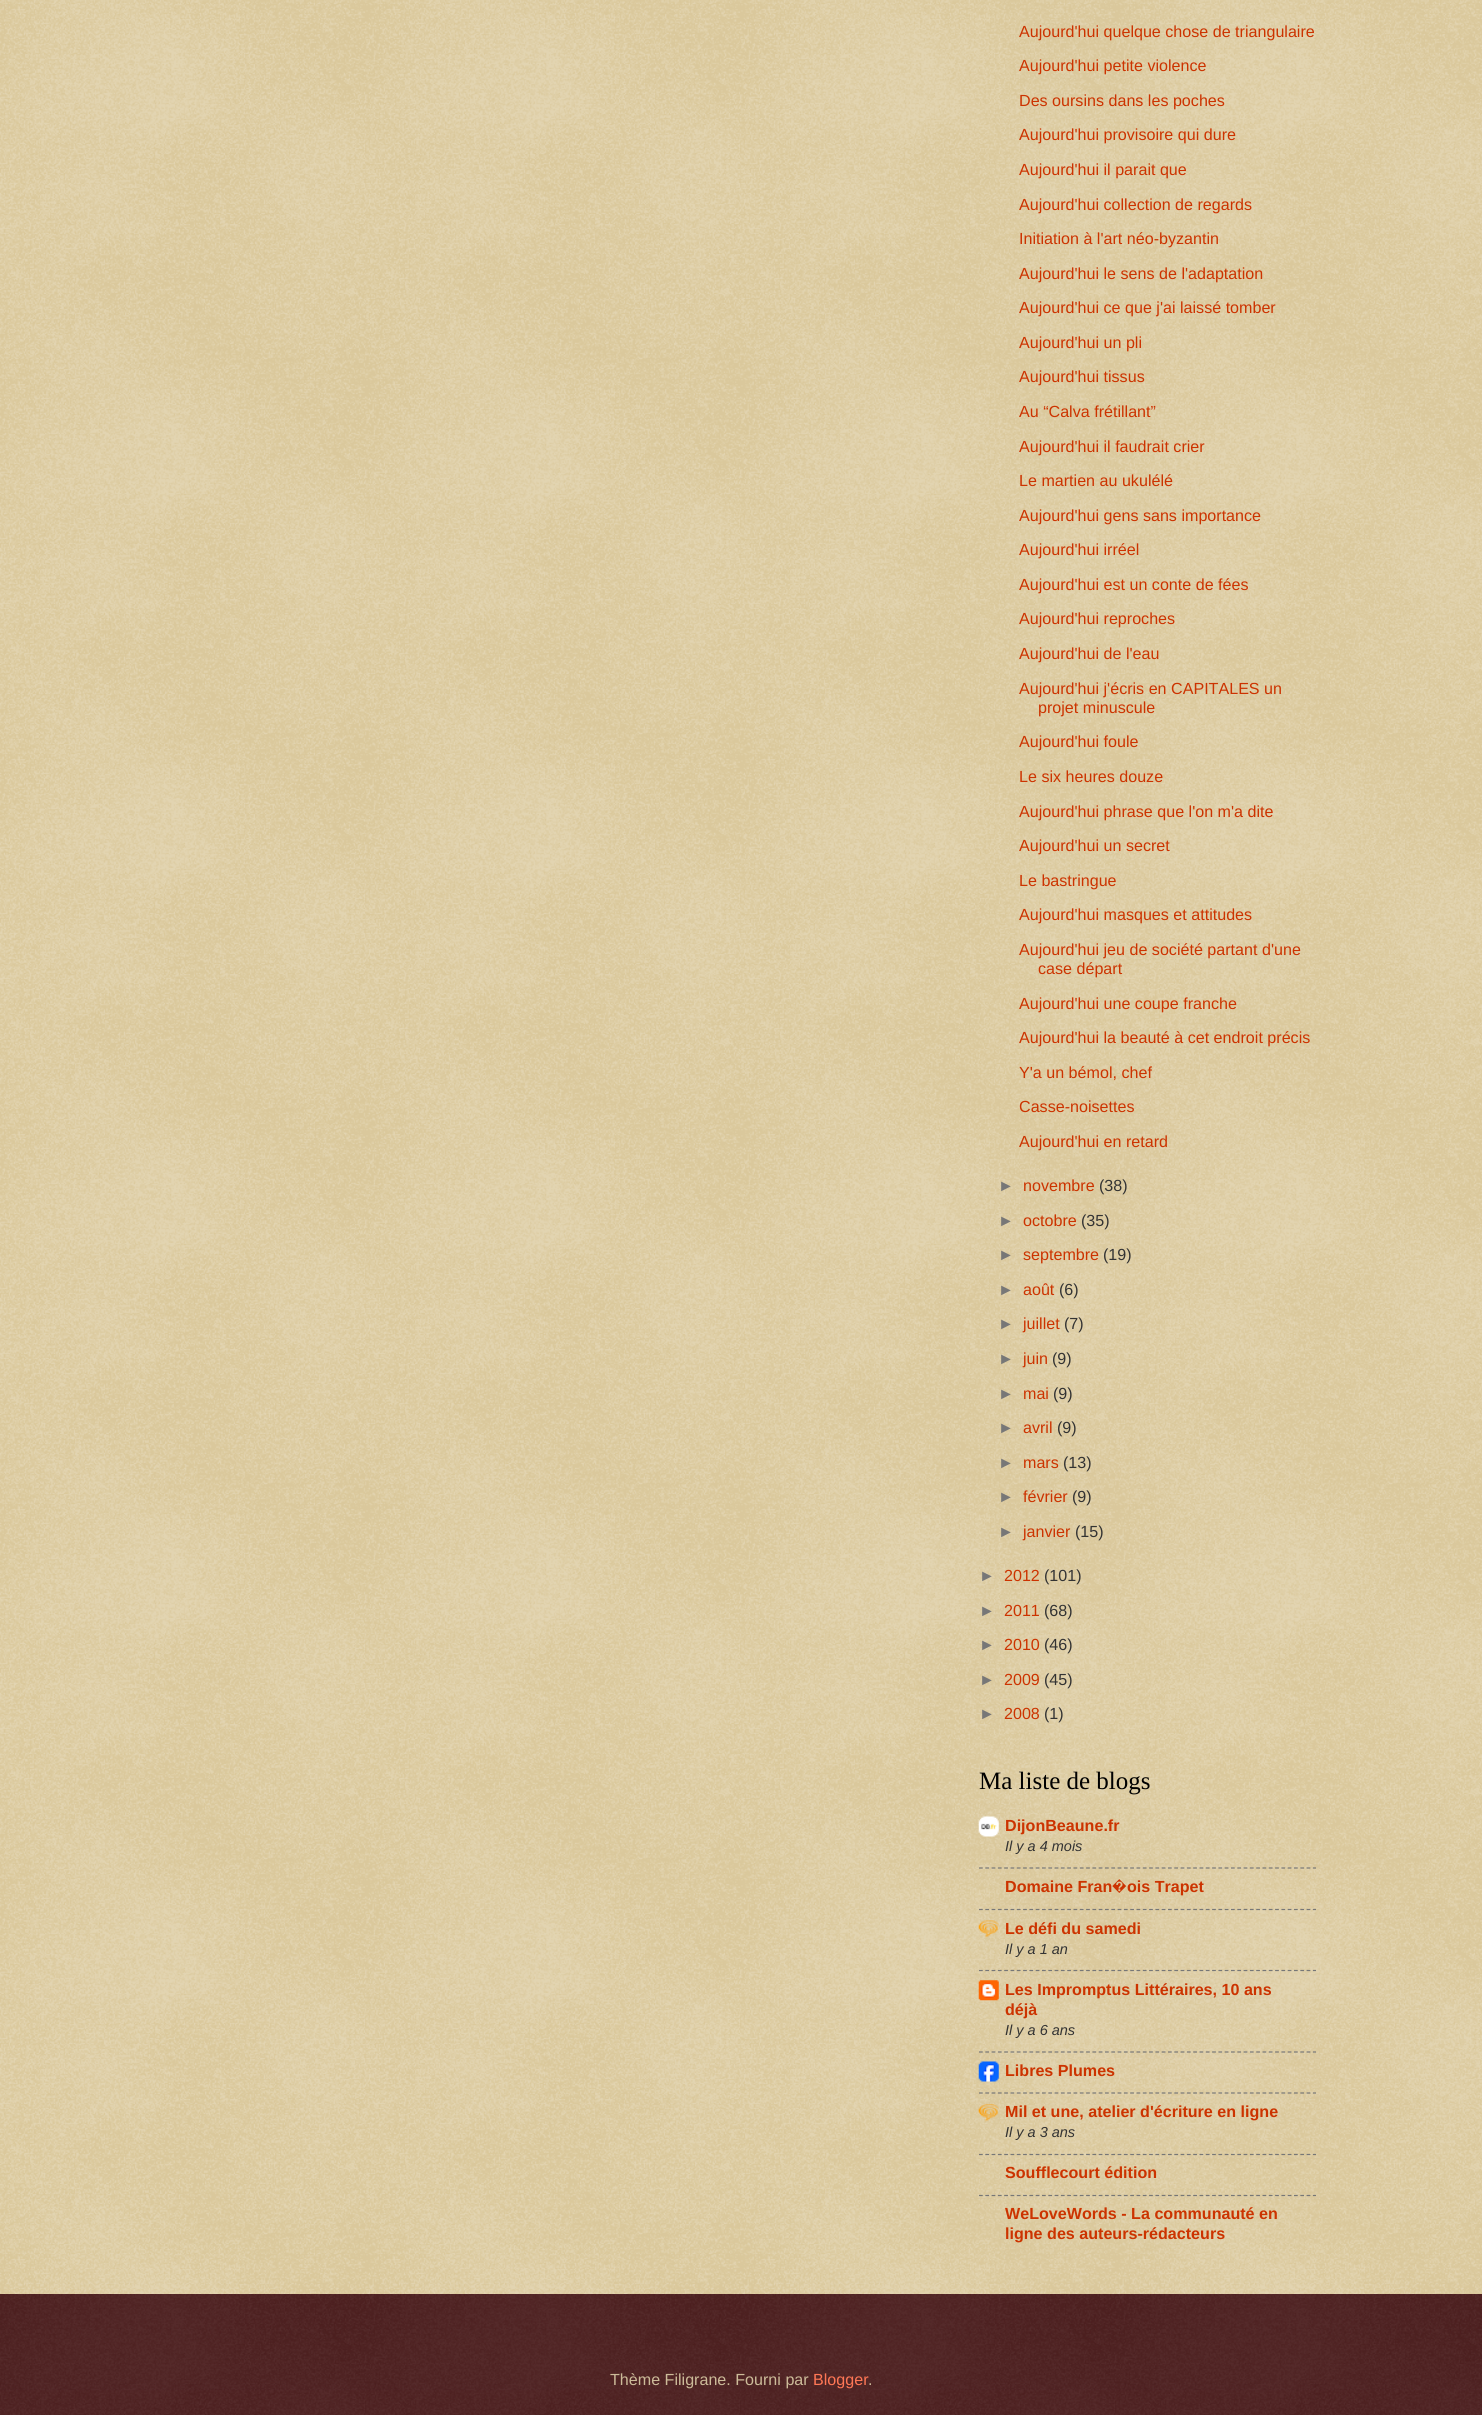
import math
import cairo



def draw_image(context, path, x, y, w, h):
    context.save()
    context.set_source_surface(cairo.ImageSurface.create_from_png(path), x, y)
    context.rectangle(x, y, w, h)
    context.fill()
    context.restore()


def draw(context):
    context.set_source_rgb(192 / 255, 161 / 255, 84 / 255)
    context.paint()
    draw_image(context, "images/1.png", 0, 0, 1482, 2294)
    draw_image(context, "images/2.png", 978, 1816, 21, 21)
    context.new_path()
    context.move_to(979, 1868)
    context.line_to(1316, 1868)
    context.set_source_rgb(119 / 255, 119 / 255, 119 / 255)
    context.set_line_width(1.2)
    context.set_dash([3.75, 2.55])
    context.stroke()
    context.new_path()
    context.move_to(979, 1909.5)
    context.line_to(1316, 1909.5)
    context.stroke()
    draw_image(context, "images/3.png", 978, 1920, 21, 18)
    context.new_path()
    context.move_to(979, 1970.5)
    context.line_to(1316, 1970.5)
    context.stroke()
    draw_image(context, "images/4.png", 978, 1980, 21, 21)
    context.new_path()
    context.move_to(979, 2052)
    context.line_to(1316, 2052)
    context.stroke()
    draw_image(context, "images/5.png", 978, 2061, 21, 21)
    context.new_path()
    context.move_to(979, 2093)
    context.line_to(1316, 2093)
    context.stroke()
    draw_image(context, "images/6.png", 978, 2103, 21, 19)
    context.new_path()
    context.move_to(979, 2154.5)
    context.line_to(1316, 2154.5)
    context.stroke()
    context.new_path()
    context.move_to(979, 2195.5)
    context.line_to(1316, 2195.5)
    context.stroke()
    context.set_source_rgb(51 / 255, 0, 0)
    context.rectangle(0, 2294, 1482, 121)
    context.fill()
    draw_image(context, "images/7.png", 0, 2294, 1482, 121)
    context.select_font_face("Liberation Sans")
    context.set_font_size(16.1)
    context.set_source_rgb(204 / 255, 51 / 255, 0)
    context.move_to(1019, 37)
    context.show_text("Aujourd'hui quelque chose de triangulaire")
    context.move_to(1019, 71)
    context.show_text("Aujourd'hui petite violence")
    context.move_to(1019, 106)
    context.show_text("Des oursins dans les poches")
    context.move_to(1019, 140)
    context.show_text("Aujourd'hui provisoire qui dure")
    context.move_to(1019, 175)
    context.show_text("Aujourd'hui il parait que")
    context.move_to(1019, 210)
    context.show_text("Aujourd'hui collection de regards")
    context.move_to(1019, 244)
    context.show_text("Initiation à l'art néo-byzantin")
    context.move_to(1019, 279)
    context.show_text("Aujourd'hui le sens de l'adaptation")
    context.move_to(1019, 313)
    context.show_text("Aujourd'hui ce que j'ai laissé tomber")
    context.move_to(1019, 348)
    context.show_text("Aujourd'hui un pli")
    context.move_to(1019, 382)
    context.show_text("Aujourd'hui tissus")
    context.move_to(1019, 417)
    context.show_text("Au “Calva frétillant”")
    context.move_to(1019, 452)
    context.show_text("Aujourd'hui il faudrait crier")
    context.move_to(1019, 486)
    context.show_text("Le martien au ukulélé")
    context.move_to(1019, 521)
    context.show_text("Aujourd'hui gens sans importance")
    context.move_to(1019, 555)
    context.show_text("Aujourd'hui irréel")
    context.move_to(1019, 590)
    context.show_text("Aujourd'hui est un conte de fées")
    context.move_to(1019, 624)
    context.show_text("Aujourd'hui reproches")
    context.move_to(1019, 659)
    context.show_text("Aujourd'hui de l'eau")
    context.move_to(1019, 694)
    context.show_text("Aujourd'hui j'écris en CAPITALES un")
    context.move_to(1038, 713)
    context.show_text("projet minuscule")
    context.move_to(1019, 747)
    context.show_text("Aujourd'hui foule")
    context.move_to(1019, 782)
    context.show_text("Le six heures douze")
    context.move_to(1019, 817)
    context.show_text("Aujourd'hui phrase que l'on m'a dite")
    context.move_to(1019, 851)
    context.show_text("Aujourd'hui un secret")
    context.move_to(1019, 886)
    context.show_text("Le bastringue")
    context.move_to(1019, 920)
    context.show_text("Aujourd'hui masques et attitudes")
    context.move_to(1019, 955)
    context.show_text("Aujourd'hui jeu de société partant d'une")
    context.move_to(1038, 974)
    context.show_text("case départ")
    context.move_to(1019, 1009)
    context.show_text("Aujourd'hui une coupe franche")
    context.move_to(1019, 1043)
    context.show_text("Aujourd'hui la beauté à cet endroit précis")
    context.move_to(1019, 1078)
    context.show_text("Y'a un bémol, chef")
    context.move_to(1019, 1112)
    context.show_text("Casse-noisettes")
    context.move_to(1019, 1147)
    context.show_text("Aujourd'hui en retard")
    context.set_source_rgb(119 / 255, 119 / 255, 119 / 255)
    context.move_to(998, 1191)
    context.show_text("►")
    context.set_source_rgb(204 / 255, 51 / 255, 0)
    context.move_to(1023, 1191)
    context.show_text("novembre")
    context.set_source_rgb(51 / 255, 51 / 255, 51 / 255)
    context.move_to(1099, 1191)
    context.show_text("(38)")
    context.set_source_rgb(119 / 255, 119 / 255, 119 / 255)
    context.move_to(998, 1226)
    context.show_text("►")
    context.set_source_rgb(204 / 255, 51 / 255, 0)
    context.move_to(1023, 1226)
    context.show_text("octobre")
    context.set_source_rgb(51 / 255, 51 / 255, 51 / 255)
    context.move_to(1081, 1226)
    context.show_text("(35)")
    context.set_source_rgb(119 / 255, 119 / 255, 119 / 255)
    context.move_to(998, 1260)
    context.show_text("►")
    context.set_source_rgb(204 / 255, 51 / 255, 0)
    context.move_to(1023, 1260)
    context.show_text("septembre")
    context.set_source_rgb(51 / 255, 51 / 255, 51 / 255)
    context.move_to(1103, 1260)
    context.show_text("(19)")
    context.set_source_rgb(119 / 255, 119 / 255, 119 / 255)
    context.move_to(998, 1295)
    context.show_text("►")
    context.set_source_rgb(204 / 255, 51 / 255, 0)
    context.move_to(1023, 1295)
    context.show_text("août")
    context.set_source_rgb(51 / 255, 51 / 255, 51 / 255)
    context.move_to(1059, 1295)
    context.show_text("(6)")
    context.set_source_rgb(119 / 255, 119 / 255, 119 / 255)
    context.move_to(998, 1329)
    context.show_text("►")
    context.set_source_rgb(204 / 255, 51 / 255, 0)
    context.move_to(1023, 1329)
    context.show_text("juillet")
    context.set_source_rgb(51 / 255, 51 / 255, 51 / 255)
    context.move_to(1064, 1329)
    context.show_text("(7)")
    context.set_source_rgb(119 / 255, 119 / 255, 119 / 255)
    context.move_to(998, 1364)
    context.show_text("►")
    context.set_source_rgb(204 / 255, 51 / 255, 0)
    context.move_to(1023, 1364)
    context.show_text("juin")
    context.set_source_rgb(51 / 255, 51 / 255, 51 / 255)
    context.move_to(1052, 1364)
    context.show_text("(9)")
    context.set_source_rgb(119 / 255, 119 / 255, 119 / 255)
    context.move_to(998, 1399)
    context.show_text("►")
    context.set_source_rgb(204 / 255, 51 / 255, 0)
    context.move_to(1023, 1399)
    context.show_text("mai")
    context.set_source_rgb(51 / 255, 51 / 255, 51 / 255)
    context.move_to(1053, 1399)
    context.show_text("(9)")
    context.set_source_rgb(119 / 255, 119 / 255, 119 / 255)
    context.move_to(998, 1433)
    context.show_text("►")
    context.set_source_rgb(204 / 255, 51 / 255, 0)
    context.move_to(1023, 1433)
    context.show_text("avril")
    context.set_source_rgb(51 / 255, 51 / 255, 51 / 255)
    context.move_to(1057, 1433)
    context.show_text("(9)")
    context.set_source_rgb(119 / 255, 119 / 255, 119 / 255)
    context.move_to(998, 1468)
    context.show_text("►")
    context.set_source_rgb(204 / 255, 51 / 255, 0)
    context.move_to(1023, 1468)
    context.show_text("mars")
    context.set_source_rgb(51 / 255, 51 / 255, 51 / 255)
    context.move_to(1063, 1468)
    context.show_text("(13)")
    context.set_source_rgb(119 / 255, 119 / 255, 119 / 255)
    context.move_to(998, 1502)
    context.show_text("►")
    context.set_source_rgb(204 / 255, 51 / 255, 0)
    context.move_to(1023, 1502)
    context.show_text("février")
    context.set_source_rgb(51 / 255, 51 / 255, 51 / 255)
    context.move_to(1072, 1502)
    context.show_text("(9)")
    context.set_source_rgb(119 / 255, 119 / 255, 119 / 255)
    context.move_to(998, 1537)
    context.show_text("►")
    context.set_source_rgb(204 / 255, 51 / 255, 0)
    context.move_to(1023, 1537)
    context.show_text("janvier")
    context.set_source_rgb(51 / 255, 51 / 255, 51 / 255)
    context.move_to(1075, 1537)
    context.show_text("(15)")
    context.set_source_rgb(119 / 255, 119 / 255, 119 / 255)
    context.move_to(979, 1581)
    context.show_text("►")
    context.set_source_rgb(204 / 255, 51 / 255, 0)
    context.move_to(1004, 1581)
    context.show_text("2012")
    context.set_source_rgb(51 / 255, 51 / 255, 51 / 255)
    context.move_to(1044, 1581)
    context.show_text("(101)")
    context.set_source_rgb(119 / 255, 119 / 255, 119 / 255)
    context.move_to(979, 1616)
    context.show_text("►")
    context.set_source_rgb(204 / 255, 51 / 255, 0)
    context.move_to(1004, 1616)
    context.show_text("2011")
    context.set_source_rgb(51 / 255, 51 / 255, 51 / 255)
    context.move_to(1044, 1616)
    context.show_text("(68)")
    context.set_source_rgb(119 / 255, 119 / 255, 119 / 255)
    context.move_to(979, 1650)
    context.show_text("►")
    context.set_source_rgb(204 / 255, 51 / 255, 0)
    context.move_to(1004, 1650)
    context.show_text("2010")
    context.set_source_rgb(51 / 255, 51 / 255, 51 / 255)
    context.move_to(1044, 1650)
    context.show_text("(46)")
    context.set_source_rgb(119 / 255, 119 / 255, 119 / 255)
    context.move_to(979, 1685)
    context.show_text("►")
    context.set_source_rgb(204 / 255, 51 / 255, 0)
    context.move_to(1004, 1685)
    context.show_text("2009")
    context.set_source_rgb(51 / 255, 51 / 255, 51 / 255)
    context.move_to(1044, 1685)
    context.show_text("(45)")
    context.set_source_rgb(119 / 255, 119 / 255, 119 / 255)
    context.move_to(979, 1719)
    context.show_text("►")
    context.set_source_rgb(204 / 255, 51 / 255, 0)
    context.move_to(1004, 1719)
    context.show_text("2008")
    context.set_source_rgb(51 / 255, 51 / 255, 51 / 255)
    context.move_to(1044, 1719)
    context.show_text("(1)")
    context.select_font_face("Liberation Serif")
    context.set_font_size(25)
    context.set_source_rgb(0, 0, 0)
    context.move_to(979, 1789)
    context.show_text("Ma liste de blogs")
    context.select_font_face("Liberation Sans", cairo.FontSlant.NORMAL, cairo.FontWeight.BOLD)
    context.set_font_size(16.1)
    context.set_source_rgb(204 / 255, 51 / 255, 0)
    context.move_to(1005, 1831)
    context.show_text("DijonBeaune.fr")
    context.select_font_face("Liberation Sans", cairo.FontSlant.ITALIC)
    context.set_font_size(14.5)
    context.set_source_rgb(51 / 255, 51 / 255, 51 / 255)
    context.move_to(1005, 1851)
    context.show_text("Il y a 4 mois")
    context.select_font_face("Liberation Sans", cairo.FontSlant.NORMAL, cairo.FontWeight.BOLD)
    context.set_font_size(16.1)
    context.set_source_rgb(204 / 255, 51 / 255, 0)
    context.move_to(1005, 1892)
    context.show_text("Domaine Fran")
    context.select_font_face("FreeSans SemiBold")
    context.move_to(1112, 1892)
    context.show_text("�")
    context.select_font_face("Liberation Sans", cairo.FontSlant.NORMAL, cairo.FontWeight.BOLD)
    context.move_to(1127, 1892)
    context.show_text("ois Trapet")
    context.move_to(1005, 1934)
    context.show_text("Le défi du samedi")
    context.select_font_face("Liberation Sans", cairo.FontSlant.ITALIC)
    context.set_font_size(14.5)
    context.set_source_rgb(51 / 255, 51 / 255, 51 / 255)
    context.move_to(1005, 1954)
    context.show_text("Il y a 1 an")
    context.select_font_face("Liberation Sans", cairo.FontSlant.NORMAL, cairo.FontWeight.BOLD)
    context.set_font_size(16.1)
    context.set_source_rgb(204 / 255, 51 / 255, 0)
    context.move_to(1005, 1995)
    context.show_text("Les Impromptus Littéraires, 10 ans")
    context.move_to(1005, 2015)
    context.show_text("déjà")
    context.select_font_face("Liberation Sans", cairo.FontSlant.ITALIC)
    context.set_font_size(14.5)
    context.set_source_rgb(51 / 255, 51 / 255, 51 / 255)
    context.move_to(1005, 2035)
    context.show_text("Il y a 6 ans")
    context.select_font_face("Liberation Sans", cairo.FontSlant.NORMAL, cairo.FontWeight.BOLD)
    context.set_font_size(16.1)
    context.set_source_rgb(204 / 255, 51 / 255, 0)
    context.move_to(1005, 2076)
    context.show_text("Libres Plumes")
    context.move_to(1005, 2117)
    context.show_text("Mil et une, atelier d'écriture en ligne")
    context.select_font_face("Liberation Sans", cairo.FontSlant.ITALIC)
    context.set_font_size(14.5)
    context.set_source_rgb(51 / 255, 51 / 255, 51 / 255)
    context.move_to(1005, 2137)
    context.show_text("Il y a 3 ans")
    context.select_font_face("Liberation Sans", cairo.FontSlant.NORMAL, cairo.FontWeight.BOLD)
    context.set_font_size(16.1)
    context.set_source_rgb(204 / 255, 51 / 255, 0)
    context.move_to(1005, 2178)
    context.show_text("Soufflecourt édition")
    context.move_to(1005, 2219)
    context.show_text("WeLoveWords - La communauté en")
    context.move_to(1005, 2239)
    context.show_text("ligne des auteurs-rédacteurs")
    context.select_font_face("Liberation Sans")
    context.set_source_rgb(204 / 255, 187 / 255, 153 / 255)
    context.move_to(610, 2385)
    context.show_text("Thème Filigrane. Fourni par")
    context.set_source_rgb(1, 119 / 255, 85 / 255)
    context.move_to(813, 2385)
    context.show_text("Blogger")
    context.set_source_rgb(204 / 255, 187 / 255, 153 / 255)
    context.move_to(868, 2385)
    context.show_text(".")


surface = cairo.ImageSurface(cairo.Format.RGB24, 1482, 2415)
context = cairo.Context(surface)
options = cairo.FontOptions()
options.set_hint_metrics(cairo.HintMetrics.OFF)
options.set_hint_style(cairo.HintStyle.NONE)
context.set_font_options(options)
context.set_miter_limit(4)
draw(context)
surface.write_to_png("out.png")
